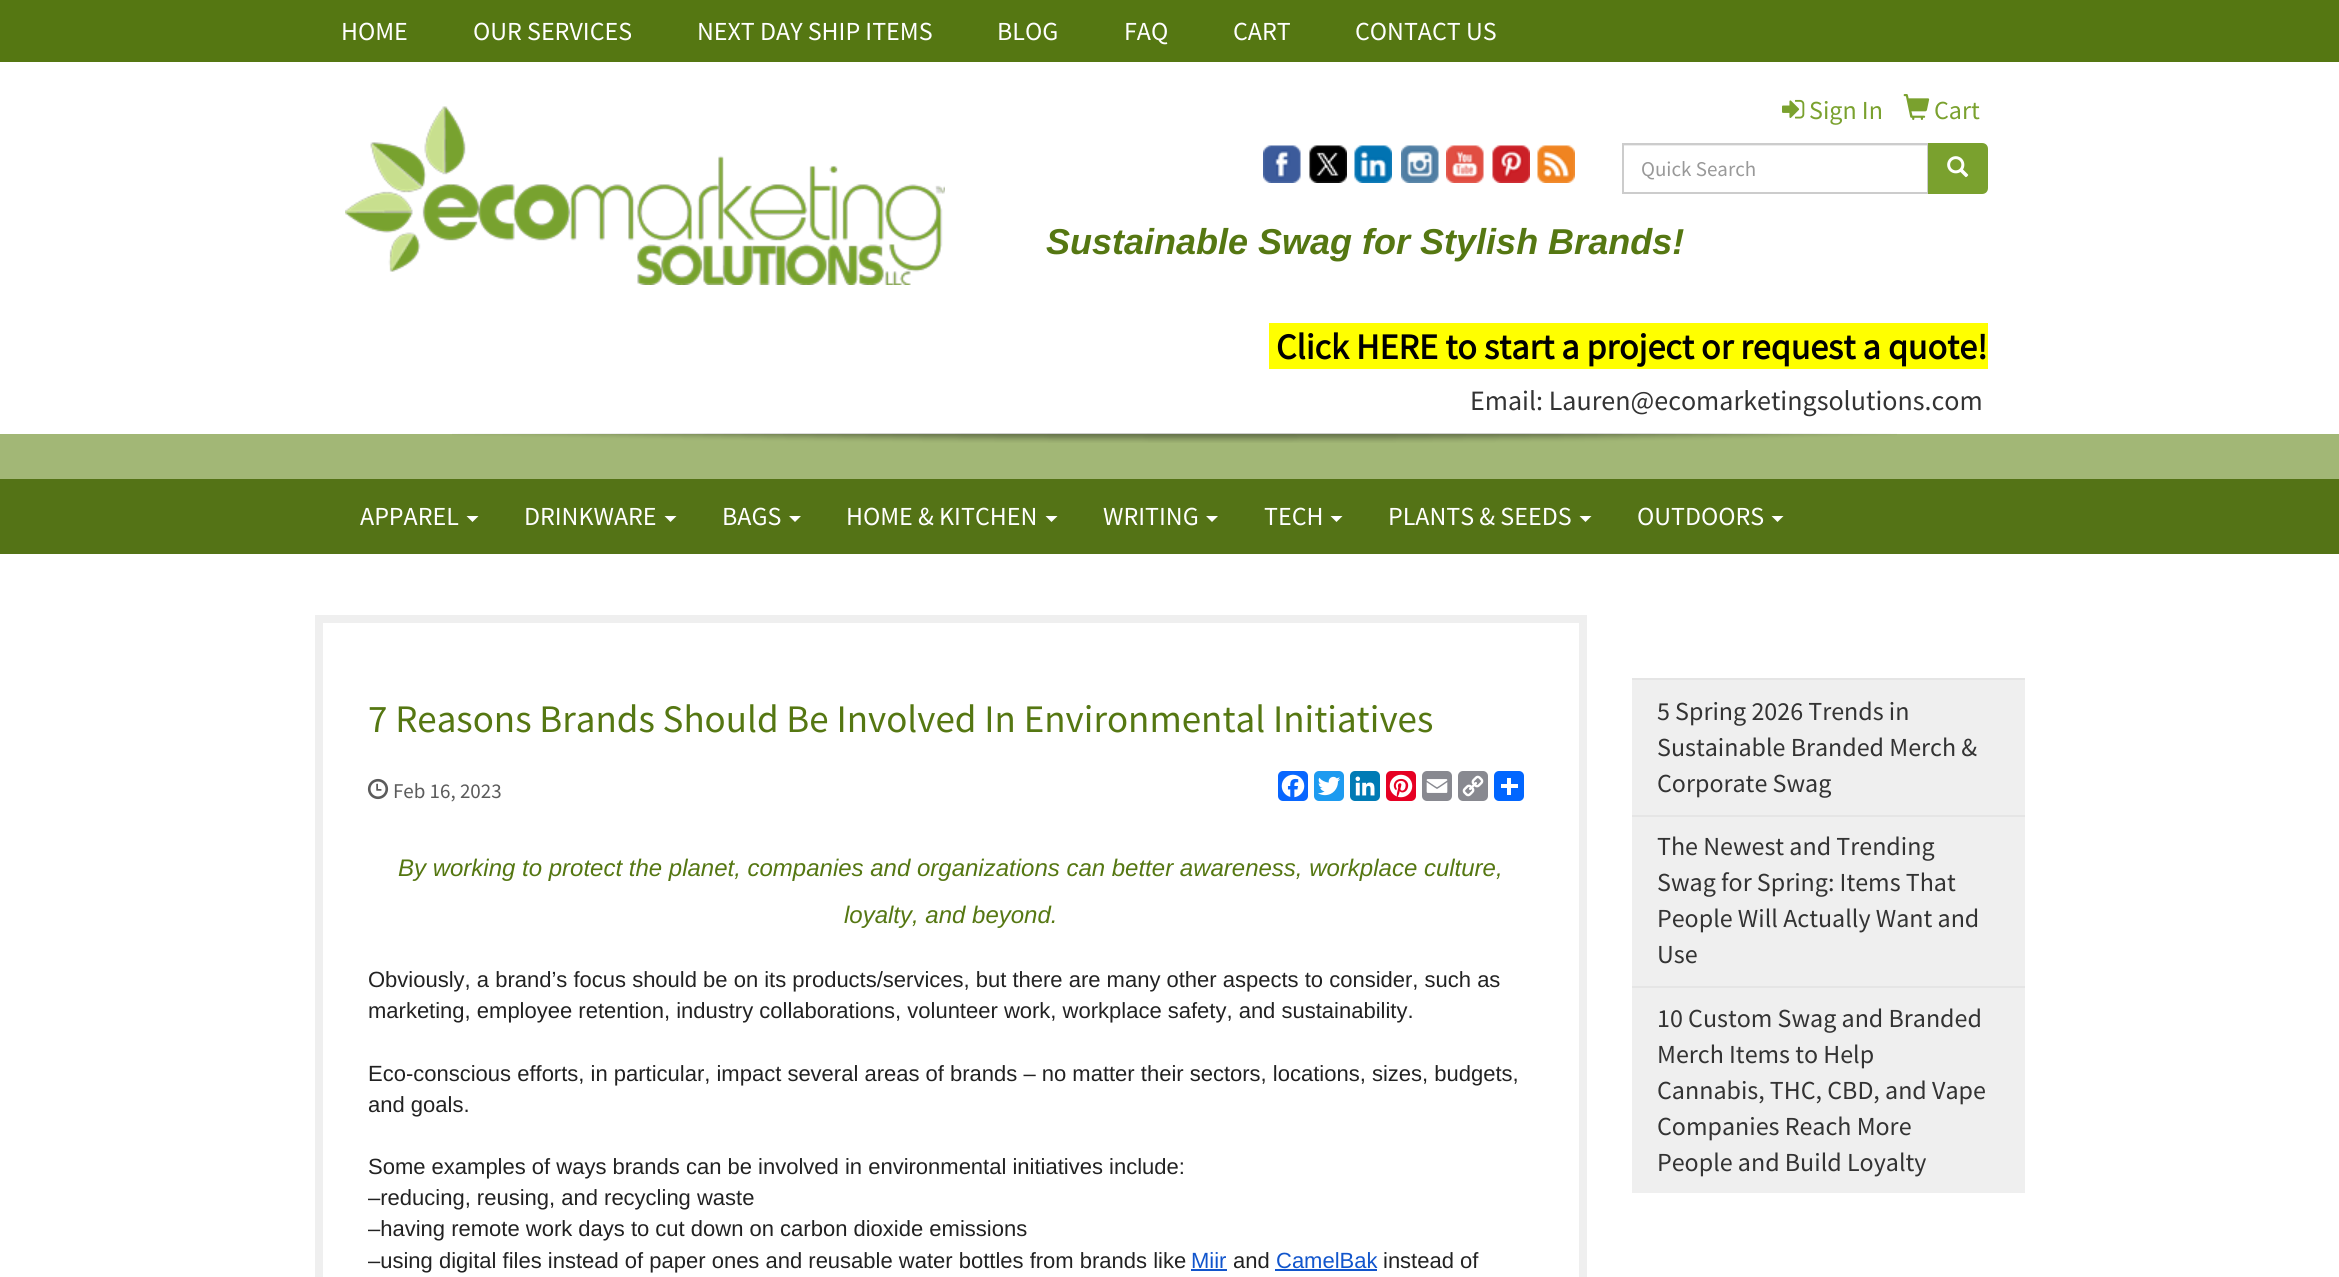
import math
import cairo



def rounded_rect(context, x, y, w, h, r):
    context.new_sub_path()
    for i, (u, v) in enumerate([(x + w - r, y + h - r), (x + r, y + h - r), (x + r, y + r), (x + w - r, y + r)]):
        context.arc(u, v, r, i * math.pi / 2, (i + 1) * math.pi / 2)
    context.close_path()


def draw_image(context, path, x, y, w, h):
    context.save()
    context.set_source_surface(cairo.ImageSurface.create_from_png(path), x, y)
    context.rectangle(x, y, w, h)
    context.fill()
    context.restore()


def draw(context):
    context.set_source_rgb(162 / 255, 183 / 255, 118 / 255)
    context.paint()
    context.set_source_rgb(85 / 255, 119 / 255, 18 / 255)
    context.rectangle(0, 0, 2339, 62)
    context.fill()
    context.set_source_rgb(1, 1, 1)
    context.rectangle(0, 62, 2339, 372)
    context.fill()
    draw_image(context, "images/1.png", 345, 106, 600, 179)
    draw_image(context, "images/2.png", 1782, 99, 23, 20)
    draw_image(context, "images/3.png", 1903, 94, 27, 26)
    draw_image(context, "images/4.png", 1263, 145, 38, 38)
    draw_image(context, "images/5.png", 1309, 145, 38, 38)
    draw_image(context, "images/6.png", 1354, 145, 38, 38)
    draw_image(context, "images/7.png", 1401, 145, 38, 38)
    draw_image(context, "images/8.png", 1446, 145, 38, 38)
    draw_image(context, "images/9.png", 1492, 145, 38, 38)
    draw_image(context, "images/10.png", 1537, 145, 38, 38)
    context.set_source_rgb(236 / 255, 236 / 255, 236 / 255)
    context.rectangle(1623, 145, 305, 1)
    context.fill()
    context.rectangle(1623, 144, 305, 49)
    context.set_source_rgb(204 / 255, 204 / 255, 204 / 255)
    context.stroke()
    context.set_source_rgb(122 / 255, 161 / 255, 46 / 255)
    context.new_path()
    context.move_to(1929, 144)
    context.line_to(1982, 144)
    context.curve_to(1985, 144, 1987, 146, 1987, 149)
    context.line_to(1987, 188)
    context.curve_to(1987, 191, 1985, 193, 1982, 193)
    context.line_to(1929, 193)
    context.close_path()
    context.fill_preserve()
    context.stroke()
    draw_image(context, "images/11.png", 1947, 156, 22, 22)
    context.set_source_rgb(1, 1, 0)
    context.rectangle(1269, 323, 719, 46)
    context.fill()
    draw_image(context, "images/12.png", 452, 433, 1445, 10)
    context.set_source_rgb(84 / 255, 115 / 255, 22 / 255)
    context.rectangle(0, 479, 2339, 75)
    context.fill()
    context.set_source_rgb(1, 1, 1)
    context.new_path()
    context.move_to(466.5, 516)
    context.line_to(478.5, 516)
    context.line_to(472.5, 522)
    context.close_path()
    context.fill()
    context.new_path()
    context.move_to(664.5, 516)
    context.line_to(676.5, 516)
    context.line_to(670.5, 522)
    context.close_path()
    context.fill()
    context.new_path()
    context.move_to(789, 516)
    context.line_to(801, 516)
    context.line_to(795, 522)
    context.close_path()
    context.fill()
    context.new_path()
    context.move_to(1045.5, 516)
    context.line_to(1057.5, 516)
    context.line_to(1051.5, 522)
    context.close_path()
    context.fill()
    context.new_path()
    context.move_to(1206, 516)
    context.line_to(1218, 516)
    context.line_to(1212, 522)
    context.close_path()
    context.fill()
    context.new_path()
    context.move_to(1330.5, 516)
    context.line_to(1342.5, 516)
    context.line_to(1336.5, 522)
    context.close_path()
    context.fill()
    context.new_path()
    context.move_to(1579.5, 516)
    context.line_to(1591.5, 516)
    context.line_to(1585.5, 522)
    context.close_path()
    context.fill()
    context.new_path()
    context.move_to(1771.5, 516)
    context.line_to(1783.5, 516)
    context.line_to(1777.5, 522)
    context.close_path()
    context.fill()
    context.rectangle(0, 554, 2339, 723)
    context.fill()
    context.rectangle(319, 619, 1264, 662)
    context.set_source_rgb(239 / 255, 239 / 255, 239 / 255)
    context.set_line_width(8)
    context.stroke()
    draw_image(context, "images/13.png", 367, 778, 22, 22)
    context.set_source_rgb(8 / 255, 102 / 255, 1)
    rounded_rect(context, 1278, 771, 30, 30, 5)
    context.fill()
    draw_image(context, "images/14.png", 1281, 774, 24, 24)
    context.set_source_rgb(29 / 255, 155 / 255, 240 / 255)
    rounded_rect(context, 1314, 771, 30, 30, 5)
    context.fill()
    draw_image(context, "images/15.png", 1318, 776, 23, 20)
    context.set_source_rgb(0, 123 / 255, 181 / 255)
    rounded_rect(context, 1350, 771, 30, 30, 5)
    context.fill()
    draw_image(context, "images/16.png", 1355, 776, 20, 20)
    context.set_source_rgb(230 / 255, 0, 35 / 255)
    rounded_rect(context, 1386, 771, 30, 30, 5)
    context.fill()
    draw_image(context, "images/17.png", 1389, 774, 24, 24)
    context.set_source_rgb(136 / 255, 137 / 255, 144 / 255)
    rounded_rect(context, 1422, 771, 30, 30, 5)
    context.fill()
    draw_image(context, "images/18.png", 1426, 779, 22, 14)
    rounded_rect(context, 1458, 771, 30, 30, 5)
    context.fill()
    draw_image(context, "images/19.png", 1462, 775, 22, 22)
    context.set_source_rgb(1 / 255, 102 / 255, 1)
    rounded_rect(context, 1494, 771, 30, 30, 5)
    context.fill()
    context.set_source_rgb(1, 1, 1)
    context.rectangle(1507, 778, 4, 17)
    context.fill()
    context.rectangle(1501, 784, 17, 4)
    context.fill()
    context.set_source_rgb(17 / 255, 85 / 255, 204 / 255)
    context.rectangle(1191, 1269, 36, 2)
    context.fill()
    context.rectangle(1275, 1269, 102, 2)
    context.fill()
    context.set_source_rgb(239 / 255, 239 / 255, 239 / 255)
    context.rectangle(1632, 680, 393, 135)
    context.fill()
    context.set_source_rgb(229 / 255, 229 / 255, 229 / 255)
    context.rectangle(1632, 678, 393, 2)
    context.fill()
    context.set_source_rgb(239 / 255, 239 / 255, 239 / 255)
    context.rectangle(1632, 817, 393, 169)
    context.fill()
    context.set_source_rgb(229 / 255, 229 / 255, 229 / 255)
    context.rectangle(1632, 815, 393, 2)
    context.fill()
    context.set_source_rgb(239 / 255, 239 / 255, 239 / 255)
    context.rectangle(1632, 988, 393, 205)
    context.fill()
    context.set_source_rgb(229 / 255, 229 / 255, 229 / 255)
    context.rectangle(1632, 986, 393, 2)
    context.fill()
    context.select_font_face("Source Sans Pro")
    context.set_font_size(26)
    context.set_source_rgb(1, 1, 1)
    context.move_to(341, 40)
    context.show_text("HOME")
    context.move_to(473, 40)
    context.show_text("OUR SERVICES")
    context.move_to(697, 40)
    context.show_text("NEXT DAY SHIP ITEMS")
    context.move_to(997, 40)
    context.show_text("BLOG")
    context.move_to(1124, 40)
    context.show_text("FAQ")
    context.move_to(1233, 40)
    context.show_text("CART")
    context.move_to(1355, 40)
    context.show_text("CONTACT US")
    context.set_source_rgb(122 / 255, 161 / 255, 46 / 255)
    context.move_to(1809, 119)
    context.show_text("Sign In")
    context.move_to(1934, 119)
    context.show_text("Cart")
    context.set_font_size(21)
    context.set_source_rgb(153 / 255, 153 / 255, 153 / 255)
    context.move_to(1641, 176)
    context.show_text("Quick Search")
    context.select_font_face("Liberation Sans", cairo.FontSlant.ITALIC, cairo.FontWeight.BOLD)
    context.set_font_size(36)
    context.set_source_rgb(85 / 255, 119 / 255, 18 / 255)
    context.move_to(1046, 254)
    context.show_text("Sustainable Swag for Stylish Brands!")
    context.select_font_face("Source Sans Pro", cairo.FontSlant.NORMAL, cairo.FontWeight.BOLD)
    context.set_source_rgb(0, 0, 0)
    context.move_to(1276, 359)
    context.show_text("Click HERE to start a project or request a quote!")
    context.select_font_face("Source Sans Pro")
    context.set_font_size(28)
    context.set_source_rgb(51 / 255, 51 / 255, 51 / 255)
    context.move_to(1470, 410)
    context.show_text("Email: Lauren@ecomarketingsolutions.com")
    context.set_font_size(26)
    context.set_source_rgb(1, 1, 1)
    context.move_to(360, 525)
    context.show_text("APPAREL")
    context.move_to(524, 525)
    context.show_text("DRINKWARE")
    context.move_to(722, 525)
    context.show_text("BAGS")
    context.move_to(846, 525)
    context.show_text("HOME & KITCHEN")
    context.move_to(1103, 525)
    context.show_text("WRITING")
    context.move_to(1264, 525)
    context.show_text("TECH")
    context.move_to(1388, 525)
    context.show_text("PLANTS & SEEDS")
    context.move_to(1637, 525)
    context.show_text("OUTDOORS")
    context.set_font_size(39)
    context.set_source_rgb(85 / 255, 119 / 255, 18 / 255)
    context.move_to(368, 732)
    context.show_text("7 Reasons Brands Should Be Involved In Environmental Initiatives")
    context.set_font_size(21)
    context.set_source_rgb(91 / 255, 91 / 255, 91 / 255)
    context.move_to(393, 798)
    context.show_text("Feb 16, 2023")
    context.select_font_face("Liberation Sans", cairo.FontSlant.ITALIC)
    context.set_font_size(24)
    context.set_source_rgb(85 / 255, 119 / 255, 18 / 255)
    context.move_to(398, 876)
    context.show_text("By working to protect the planet, companies and organizations can better awareness, workplace culture,")
    context.move_to(844, 923)
    context.show_text("loyalty, and beyond.")
    context.select_font_face("Liberation Sans")
    context.set_font_size(22)
    context.set_source_rgb(34 / 255, 34 / 255, 34 / 255)
    context.move_to(368, 987)
    context.show_text("Obviously, a brand’s focus should be on its products/services, but there are many other aspects to consider, such as")
    context.move_to(368, 1018)
    context.show_text("marketing, employee retention, industry collaborations, volunteer work, workplace safety, and sustainability.")
    context.move_to(368, 1081)
    context.show_text("Eco-conscious efforts, in particular, impact several areas of brands – no matter their sectors, locations, sizes, budgets,")
    context.move_to(368, 1112)
    context.show_text("and goals.")
    context.move_to(368, 1174)
    context.show_text("Some examples of ways brands can be involved in environmental initiatives include:")
    context.move_to(368, 1205)
    context.show_text("–reducing, reusing, and recycling waste")
    context.move_to(368, 1236)
    context.show_text("–having remote work days to cut down on carbon dioxide emissions")
    context.move_to(368, 1268)
    context.show_text("–using digital files instead of paper ones and reusable water bottles from brands like")
    context.set_source_rgb(17 / 255, 85 / 255, 204 / 255)
    context.move_to(1191, 1268)
    context.show_text("Miir")
    context.set_source_rgb(34 / 255, 34 / 255, 34 / 255)
    context.move_to(1233, 1268)
    context.show_text("and")
    context.set_source_rgb(17 / 255, 85 / 255, 204 / 255)
    context.move_to(1276, 1268)
    context.show_text("CamelBak")
    context.set_source_rgb(34 / 255, 34 / 255, 34 / 255)
    context.move_to(1383, 1268)
    context.show_text("instead of")
    context.select_font_face("Source Sans Pro")
    context.set_font_size(26)
    context.set_source_rgb(51 / 255, 51 / 255, 51 / 255)
    context.move_to(1657, 720)
    context.show_text("5 Spring 2026 Trends in")
    context.move_to(1657, 756)
    context.show_text("Sustainable Branded Merch &")
    context.move_to(1657, 792)
    context.show_text("Corporate Swag")
    context.move_to(1657, 855)
    context.show_text("The Newest and Trending")
    context.move_to(1657, 891)
    context.show_text("Swag for Spring: Items That")
    context.move_to(1657, 927)
    context.show_text("People Will Actually Want and")
    context.move_to(1657, 963)
    context.show_text("Use")
    context.move_to(1657, 1027)
    context.show_text("10 Custom Swag and Branded")
    context.move_to(1657, 1063)
    context.show_text("Merch Items to Help")
    context.move_to(1657, 1099)
    context.show_text("Cannabis, THC, CBD, and Vape")
    context.move_to(1657, 1135)
    context.show_text("Companies Reach More")
    context.move_to(1657, 1171)
    context.show_text("People and Build Loyalty")


surface = cairo.ImageSurface(cairo.Format.RGB24, 2339, 1277)
context = cairo.Context(surface)
options = cairo.FontOptions()
options.set_hint_metrics(cairo.HintMetrics.OFF)
options.set_hint_style(cairo.HintStyle.NONE)
context.set_font_options(options)
context.set_miter_limit(4)
draw(context)
surface.write_to_png("out.png")
